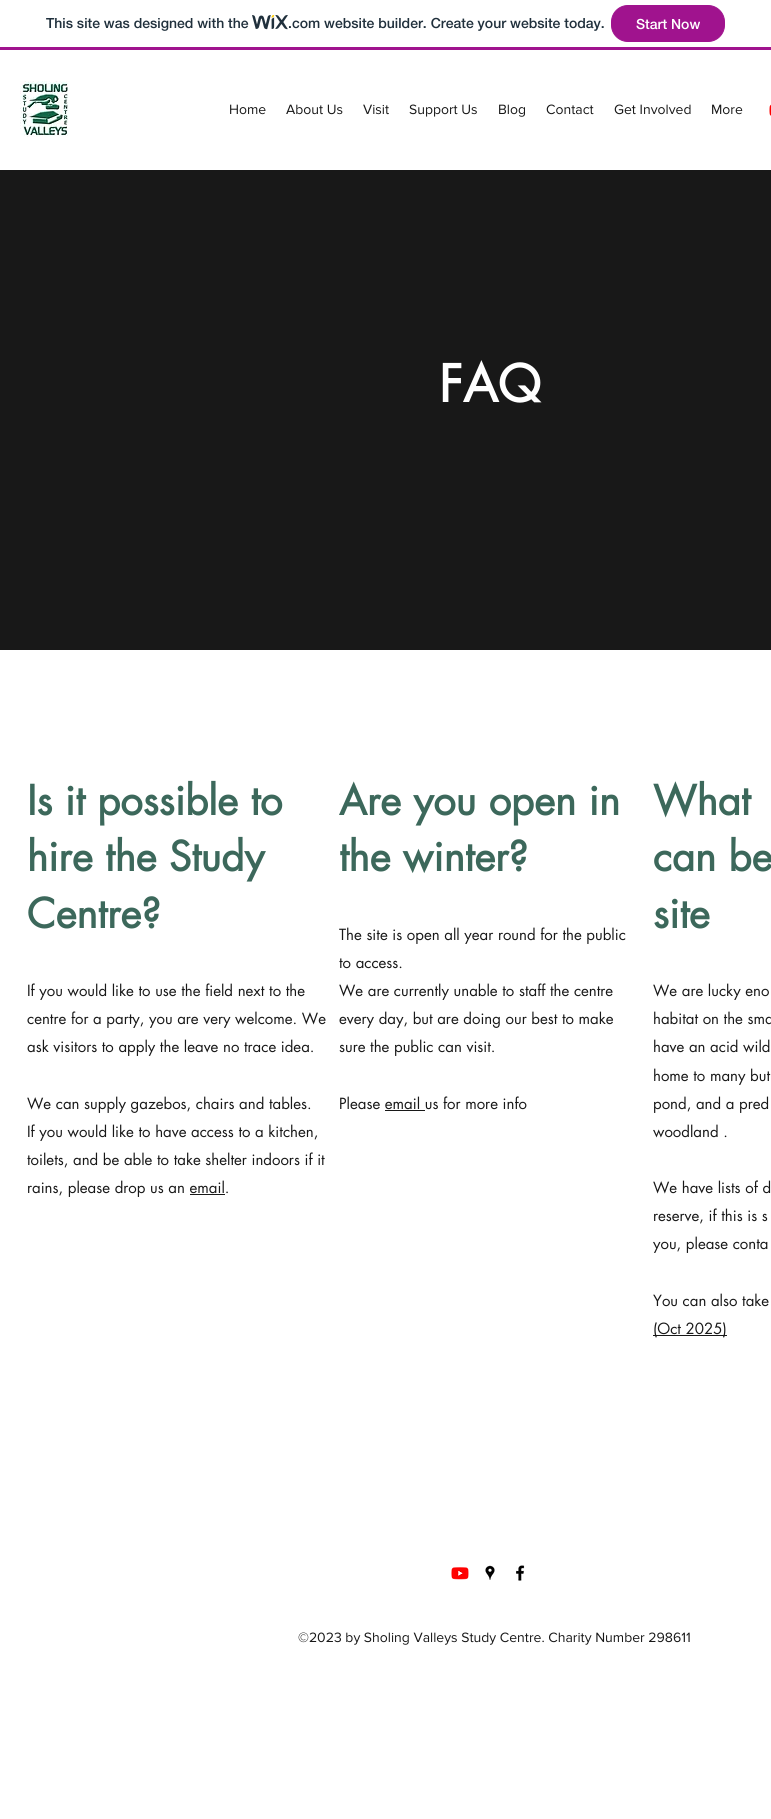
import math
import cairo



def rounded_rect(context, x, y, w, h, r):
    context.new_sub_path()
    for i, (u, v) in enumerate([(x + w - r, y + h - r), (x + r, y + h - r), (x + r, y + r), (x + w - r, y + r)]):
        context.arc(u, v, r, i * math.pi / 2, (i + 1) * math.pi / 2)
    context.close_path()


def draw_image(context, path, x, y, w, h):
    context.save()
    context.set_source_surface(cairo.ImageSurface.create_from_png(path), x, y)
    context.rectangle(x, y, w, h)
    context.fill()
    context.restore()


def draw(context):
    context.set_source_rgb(1, 1, 1)
    context.paint()
    context.set_source_rgb(160 / 255, 19 / 255, 142 / 255)
    context.rectangle(0, 47, 771, 3)
    context.fill()
    draw_image(context, "images/1.png", 252, 15, 36, 15)
    rounded_rect(context, 611.5, 5.5, 113, 36, 16.5)
    context.fill_preserve()
    context.set_line_width(1)
    context.stroke()
    draw_image(context, "images/2.png", 20, 81, 49, 56)
    draw_image(context, "images/3.png", 769, 104, 2, 12)
    context.set_source_rgb(24 / 255, 24 / 255, 24 / 255)
    context.rectangle(0, 170, 771, 480)
    context.fill()
    context.rectangle(190, 1194, 35, 1)
    context.fill()
    context.rectangle(385, 1110, 40, 1)
    context.fill()
    context.rectangle(653, 1335, 74, 1)
    context.fill()
    draw_image(context, "images/4.png", 451, 1567, 18, 13)
    draw_image(context, "images/5.png", 485, 1565, 10, 15)
    draw_image(context, "images/6.png", 516, 1565, 9, 16)
    context.select_font_face("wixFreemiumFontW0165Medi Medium")
    context.set_font_size(14)
    context.set_source_rgb(32 / 255, 48 / 255, 60 / 255)
    context.move_to(46, 28)
    context.show_text("This site was designed with the")
    context.move_to(288, 28)
    context.show_text(".com website builder. Create your website today.")
    context.set_source_rgb(1, 1, 1)
    context.move_to(636, 29)
    context.show_text("Start Now")
    context.select_font_face("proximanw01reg")
    context.set_source_rgb(24 / 255, 24 / 255, 24 / 255)
    context.move_to(229, 114)
    context.show_text("Home")
    context.move_to(286, 114)
    context.show_text("About Us")
    context.move_to(363, 114)
    context.show_text("Visit")
    context.move_to(409, 114)
    context.show_text("Support Us")
    context.move_to(498, 114)
    context.show_text("Blog")
    context.move_to(546, 114)
    context.show_text("Contact")
    context.move_to(614, 114)
    context.show_text("Get Involved")
    context.move_to(711, 114)
    context.show_text("More")
    context.select_font_face("futura", cairo.FontSlant.NORMAL, cairo.FontWeight.BOLD)
    context.set_font_size(50)
    context.set_source_rgb(1, 1, 1)
    context.move_to(439, 402)
    context.show_text("FAQ")
    context.set_font_size(40)
    context.set_source_rgb(60 / 255, 104 / 255, 91 / 255)
    context.move_to(27, 815)
    context.show_text("Is it possible to")
    context.move_to(27, 871)
    context.show_text("hire the Study")
    context.move_to(27, 928)
    context.show_text("Centre?")
    context.select_font_face("futura")
    context.set_font_size(15)
    context.set_source_rgb(24 / 255, 24 / 255, 24 / 255)
    context.move_to(27, 996)
    context.show_text("If you would like to use the field next to the")
    context.move_to(27, 1024)
    context.show_text("centre for a party, you are very welcome. We")
    context.move_to(27, 1052)
    context.show_text("ask visitors to apply the leave no trace idea.")
    context.move_to(27, 1109)
    context.show_text("We can supply gazebos, chairs and tables.")
    context.move_to(27, 1137)
    context.show_text("If you would like to have access to a kitchen,")
    context.move_to(27, 1165)
    context.show_text("toilets, and be able to take shelter indoors if it")
    context.move_to(27, 1193)
    context.show_text("rains, please drop us an email.")
    context.select_font_face("futura", cairo.FontSlant.NORMAL, cairo.FontWeight.BOLD)
    context.set_font_size(40)
    context.set_source_rgb(60 / 255, 104 / 255, 91 / 255)
    context.move_to(339, 815)
    context.show_text("Are you open in")
    context.move_to(339, 871)
    context.show_text("the winter?")
    context.select_font_face("futura")
    context.set_font_size(15)
    context.set_source_rgb(24 / 255, 24 / 255, 24 / 255)
    context.move_to(339, 940)
    context.show_text("The site is open all year round for the public")
    context.move_to(339, 968)
    context.show_text("to access.")
    context.move_to(339, 996)
    context.show_text("We are currently unable to staff the centre")
    context.move_to(339, 1024)
    context.show_text("every day, but are doing our best to make")
    context.move_to(339, 1052)
    context.show_text("sure the public can visit.")
    context.move_to(339, 1109)
    context.show_text("Please email us for more info")
    context.select_font_face("futura", cairo.FontSlant.NORMAL, cairo.FontWeight.BOLD)
    context.set_font_size(40)
    context.set_source_rgb(60 / 255, 104 / 255, 91 / 255)
    context.move_to(653, 815)
    context.show_text("What")
    context.move_to(653, 871)
    context.show_text("can be")
    context.move_to(653, 928)
    context.show_text("site")
    context.select_font_face("futura")
    context.set_font_size(15)
    context.set_source_rgb(24 / 255, 24 / 255, 24 / 255)
    context.move_to(653, 996)
    context.show_text("We are lucky eno")
    context.move_to(653, 1024)
    context.show_text("habitat on the sma")
    context.move_to(653, 1052)
    context.show_text("have an acid wild")
    context.move_to(653, 1081)
    context.show_text("home to many but")
    context.move_to(653, 1109)
    context.show_text("pond, and a pred")
    context.move_to(653, 1137)
    context.show_text("woodland .")
    context.move_to(653, 1193)
    context.show_text("We have lists of d")
    context.move_to(653, 1221)
    context.show_text("reserve, if this is s")
    context.move_to(653, 1249)
    context.show_text("you, please conta")
    context.move_to(653, 1306)
    context.show_text("You can also take")
    context.move_to(653, 1334)
    context.show_text("(Oct 2025)")
    context.select_font_face("proximanw01reg")
    context.set_font_size(14)
    context.move_to(298, 1642)
    context.show_text("©2023 by Sholing Valleys Study Centre. Charity Number 298611")


surface = cairo.ImageSurface(cairo.Format.RGB24, 771, 1819)
context = cairo.Context(surface)
options = cairo.FontOptions()
options.set_hint_metrics(cairo.HintMetrics.OFF)
options.set_hint_style(cairo.HintStyle.NONE)
context.set_font_options(options)
context.set_miter_limit(4)
draw(context)
surface.write_to_png("out.png")
